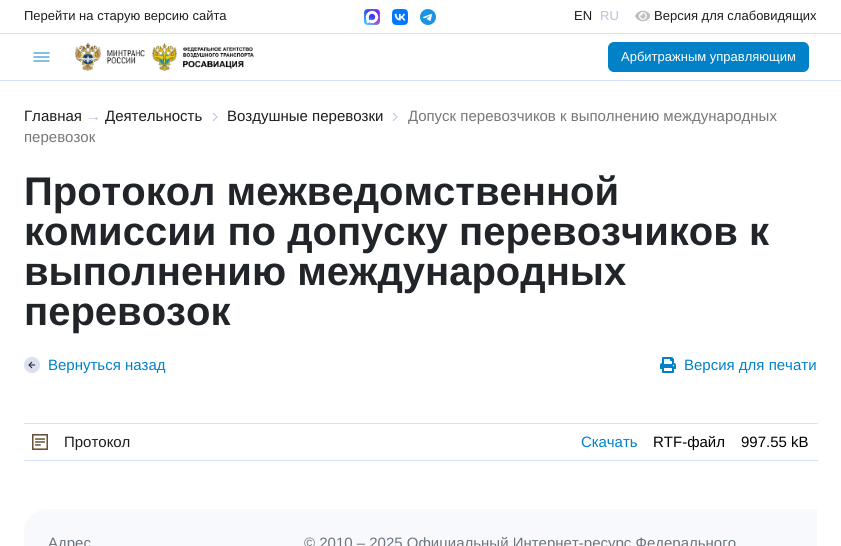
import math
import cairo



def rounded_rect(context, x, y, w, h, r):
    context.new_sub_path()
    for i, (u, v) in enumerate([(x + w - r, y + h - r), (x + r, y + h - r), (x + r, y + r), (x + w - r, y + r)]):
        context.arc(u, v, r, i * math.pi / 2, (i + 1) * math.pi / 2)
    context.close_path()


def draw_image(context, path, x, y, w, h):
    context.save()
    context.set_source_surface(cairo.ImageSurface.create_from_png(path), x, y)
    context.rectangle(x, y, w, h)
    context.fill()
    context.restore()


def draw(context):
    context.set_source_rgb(1, 1, 1)
    context.paint()
    draw_image(context, "images/1.png", 364, 9, 16, 16)
    draw_image(context, "images/2.png", 392, 9, 16, 16)
    draw_image(context, "images/3.png", 420, 9, 16, 16)
    draw_image(context, "images/4.png", 635, 10, 15, 12)
    context.set_source_rgb(214 / 255, 224 / 255, 1)
    context.rectangle(0, 33, 841, 1)
    context.fill()
    context.rectangle(0, 80, 841, 1)
    context.fill()
    draw_image(context, "images/5.png", 33, 52, 17, 10)
    draw_image(context, "images/6.png", 75, 43, 26, 28)
    draw_image(context, "images/7.png", 107, 50, 38, 14)
    draw_image(context, "images/8.png", 152, 43, 25, 28)
    draw_image(context, "images/9.png", 183, 47, 71, 22)
    context.set_source_rgb(0, 129 / 255, 200 / 255)
    rounded_rect(context, 608.5, 42.5, 200, 29, 5.5)
    context.fill_preserve()
    context.set_line_width(1)
    context.stroke()
    context.new_path()
    context.move_to(213, 121)
    context.line_to(217, 117)
    context.line_to(213, 113)
    context.set_source_rgb(184 / 255, 194 / 255, 224 / 255)
    context.stroke()
    context.new_path()
    context.move_to(393, 121)
    context.line_to(397, 117)
    context.line_to(393, 113)
    context.stroke()
    draw_image(context, "images/10.png", 24, 357, 16, 16)
    draw_image(context, "images/11.png", 660, 357, 16, 16)
    context.set_source_rgb(222 / 255, 226 / 255, 230 / 255)
    context.rectangle(24, 423, 794, 1)
    context.fill()
    draw_image(context, "images/12.png", 32, 434, 16, 16)
    context.set_source_rgb(214 / 255, 224 / 255, 1)
    context.rectangle(24, 460, 794, 1)
    context.fill()
    context.set_source_rgb(248 / 255, 249 / 255, 252 / 255)
    context.new_path()
    context.move_to(48, 509)
    context.line_to(817, 509)
    context.line_to(817, 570)
    context.line_to(24, 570)
    context.line_to(24, 533)
    context.curve_to(24, 519.5, 34.5, 509, 48, 509)
    context.close_path()
    context.fill()
    context.select_font_face("Liberation Sans")
    context.set_font_size(13)
    context.set_source_rgb(29 / 255, 29 / 255, 27 / 255)
    context.move_to(24, 20)
    context.show_text("Перейти на старую версию сайта")
    context.move_to(574, 20)
    context.show_text("EN")
    context.set_source_rgb(184 / 255, 194 / 255, 224 / 255)
    context.move_to(600, 20)
    context.show_text("RU")
    context.set_source_rgb(29 / 255, 29 / 255, 27 / 255)
    context.move_to(654, 20)
    context.show_text("Версия для слабовидящих")
    context.set_source_rgb(1, 1, 1)
    context.move_to(621, 61)
    context.show_text("Арбитражным управляющим")
    context.set_font_size(15)
    context.set_source_rgb(29 / 255, 29 / 255, 27 / 255)
    context.move_to(24, 121)
    context.show_text("Главная")
    context.set_source_rgb(184 / 255, 194 / 255, 224 / 255)
    context.move_to(86, 121)
    context.show_text("→")
    context.set_source_rgb(29 / 255, 29 / 255, 27 / 255)
    context.move_to(105, 121)
    context.show_text("Деятельность")
    context.move_to(227, 121)
    context.show_text("Воздушные перевозки")
    context.set_source_rgb(119 / 255, 119 / 255, 119 / 255)
    context.move_to(408, 121)
    context.show_text("Допуск перевозчиков к выполнению международных")
    context.move_to(24, 142)
    context.show_text("перевозок")
    context.select_font_face("Liberation Sans", cairo.FontSlant.NORMAL, cairo.FontWeight.BOLD)
    context.set_font_size(40)
    context.set_source_rgb(33 / 255, 37 / 255, 41 / 255)
    context.move_to(24, 205)
    context.show_text("Протокол межведомственной")
    context.move_to(24, 245)
    context.show_text("комиссии по допуску перевозчиков к")
    context.move_to(24, 285)
    context.show_text("выполнению международных")
    context.move_to(24, 325)
    context.show_text("перевозок")
    context.select_font_face("Liberation Sans")
    context.set_font_size(15)
    context.set_source_rgb(0, 129 / 255, 200 / 255)
    context.move_to(48, 370)
    context.show_text("Вернуться назад")
    context.move_to(684, 370)
    context.show_text("Версия для печати")
    context.set_source_rgb(29 / 255, 29 / 255, 27 / 255)
    context.move_to(64, 447)
    context.show_text("Протокол")
    context.set_source_rgb(0, 129 / 255, 200 / 255)
    context.move_to(581, 447)
    context.show_text("Скачать")
    context.set_source_rgb(0, 0, 0)
    context.move_to(653, 447)
    context.show_text("RTF-файл")
    context.move_to(741, 447)
    context.show_text("997.55 kB")
    context.set_source_rgb(108 / 255, 117 / 255, 125 / 255)
    context.move_to(48, 548)
    context.show_text("Адрес")
    context.move_to(304, 548)
    context.show_text("© 2010 – 2025 Официальный Интернет-ресурс Федерального")


surface = cairo.ImageSurface(cairo.Format.RGB24, 841, 546)
context = cairo.Context(surface)
options = cairo.FontOptions()
options.set_hint_metrics(cairo.HintMetrics.OFF)
options.set_hint_style(cairo.HintStyle.NONE)
context.set_font_options(options)
context.set_miter_limit(4)
draw(context)
surface.write_to_png("out.png")
